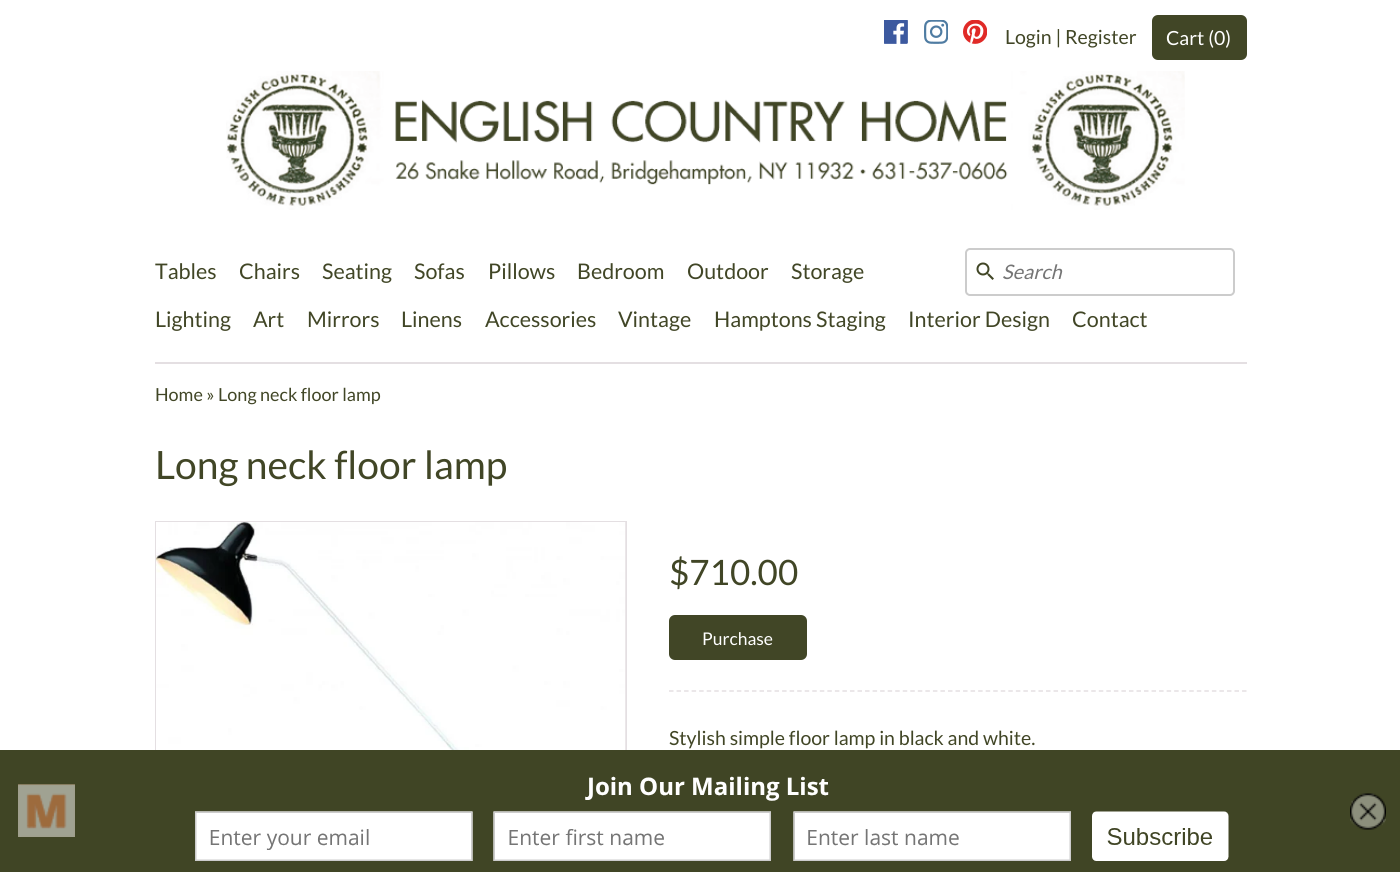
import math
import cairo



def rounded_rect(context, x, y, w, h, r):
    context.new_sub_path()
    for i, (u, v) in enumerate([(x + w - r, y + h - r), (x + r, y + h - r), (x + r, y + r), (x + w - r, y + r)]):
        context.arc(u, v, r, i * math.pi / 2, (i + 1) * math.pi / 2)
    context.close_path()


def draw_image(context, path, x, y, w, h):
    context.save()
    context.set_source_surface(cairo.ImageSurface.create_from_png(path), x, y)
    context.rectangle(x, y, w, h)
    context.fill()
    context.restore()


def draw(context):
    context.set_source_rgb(1, 1, 1)
    context.paint()
    draw_image(context, "images/1.png", 884, 20, 24, 24)
    draw_image(context, "images/2.png", 924, 20, 24, 24)
    draw_image(context, "images/3.png", 963, 20, 24, 24)
    context.set_source_rgb(65 / 255, 70 / 255, 38 / 255)
    rounded_rect(context, 1152, 15, 95, 45, 6)
    context.fill()
    draw_image(context, "images/4.png", 226, 71, 959, 139)
    context.set_source_rgb(228 / 255, 223 / 255, 226 / 255)
    context.rectangle(155, 362, 1092, 2)
    context.fill()
    rounded_rect(context, 966, 249, 268, 46, 4)
    context.set_source_rgb(204 / 255, 204 / 255, 204 / 255)
    context.stroke()
    draw_image(context, "images/5.png", 976, 262, 18, 18)
    context.rectangle(156, 522, 470, 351)
    context.set_source_rgb(228 / 255, 223 / 255, 226 / 255)
    context.stroke()
    draw_image(context, "images/6.png", 156, 522, 470, 228)
    context.set_source_rgb(65 / 255, 70 / 255, 38 / 255)
    rounded_rect(context, 669, 615, 138, 45, 6)
    context.fill()
    context.new_path()
    context.move_to(669, 691)
    context.line_to(1246.5, 691)
    context.set_source_rgb(228 / 255, 223 / 255, 226 / 255)
    context.set_line_width(1.5)
    context.set_dash([4.5, 3.04])
    context.stroke()
    draw_image(context, "images/7.png", 0, 750, 1400, 122)
    context.select_font_face("Lato")
    context.set_font_size(19.5)
    context.set_source_rgb(65 / 255, 70 / 255, 38 / 255)
    context.move_to(1005, 44)
    context.show_text("Login | Register")
    context.set_source_rgb(1, 1, 1)
    context.move_to(1166, 45)
    context.show_text("Cart (0)")
    context.set_font_size(21.5)
    context.set_source_rgb(65 / 255, 70 / 255, 38 / 255)
    context.move_to(155, 279)
    context.show_text("Tables")
    context.move_to(239, 279)
    context.show_text("Chairs")
    context.move_to(322, 279)
    context.show_text("Seating")
    context.move_to(414, 279)
    context.show_text("Sofas")
    context.move_to(488, 279)
    context.show_text("Pillows")
    context.move_to(577, 279)
    context.show_text("Bedroom")
    context.move_to(687, 279)
    context.show_text("Outdoor")
    context.move_to(791, 279)
    context.show_text("Storage")
    context.move_to(155, 327)
    context.show_text("Lighting")
    context.move_to(253, 327)
    context.show_text("Art")
    context.move_to(307, 327)
    context.show_text("Mirrors")
    context.move_to(401, 327)
    context.show_text("Linens")
    context.move_to(485, 327)
    context.show_text("Accessories")
    context.move_to(618, 327)
    context.show_text("Vintage")
    context.move_to(714, 327)
    context.show_text("Hamptons Staging")
    context.move_to(908, 327)
    context.show_text("Interior Design")
    context.move_to(1072, 327)
    context.show_text("Contact")
    context.select_font_face("Lato", cairo.FontSlant.ITALIC)
    context.set_font_size(20)
    context.set_source_rgb(117 / 255, 117 / 255, 117 / 255)
    context.move_to(1002, 279)
    context.show_text("Search")
    context.select_font_face("Lato")
    context.set_font_size(18)
    context.set_source_rgb(65 / 255, 70 / 255, 38 / 255)
    context.move_to(155, 401)
    context.show_text("Home » Long neck floor lamp")
    context.set_font_size(39)
    context.move_to(155, 479)
    context.show_text("Long neck floor lamp")
    context.set_font_size(35)
    context.move_to(669, 585)
    context.show_text("$710.00")
    context.set_font_size(17.5)
    context.set_source_rgb(1, 1, 1)
    context.move_to(702, 645)
    context.show_text("Purchase")
    context.set_font_size(19.5)
    context.set_source_rgb(65 / 255, 70 / 255, 38 / 255)
    context.move_to(669, 745)
    context.show_text("Stylish simple floor lamp in black and white.")


surface = cairo.ImageSurface(cairo.Format.RGB24, 1400, 872)
context = cairo.Context(surface)
options = cairo.FontOptions()
options.set_hint_metrics(cairo.HintMetrics.OFF)
options.set_hint_style(cairo.HintStyle.NONE)
context.set_font_options(options)
context.set_miter_limit(4)
draw(context)
surface.write_to_png("out.png")
